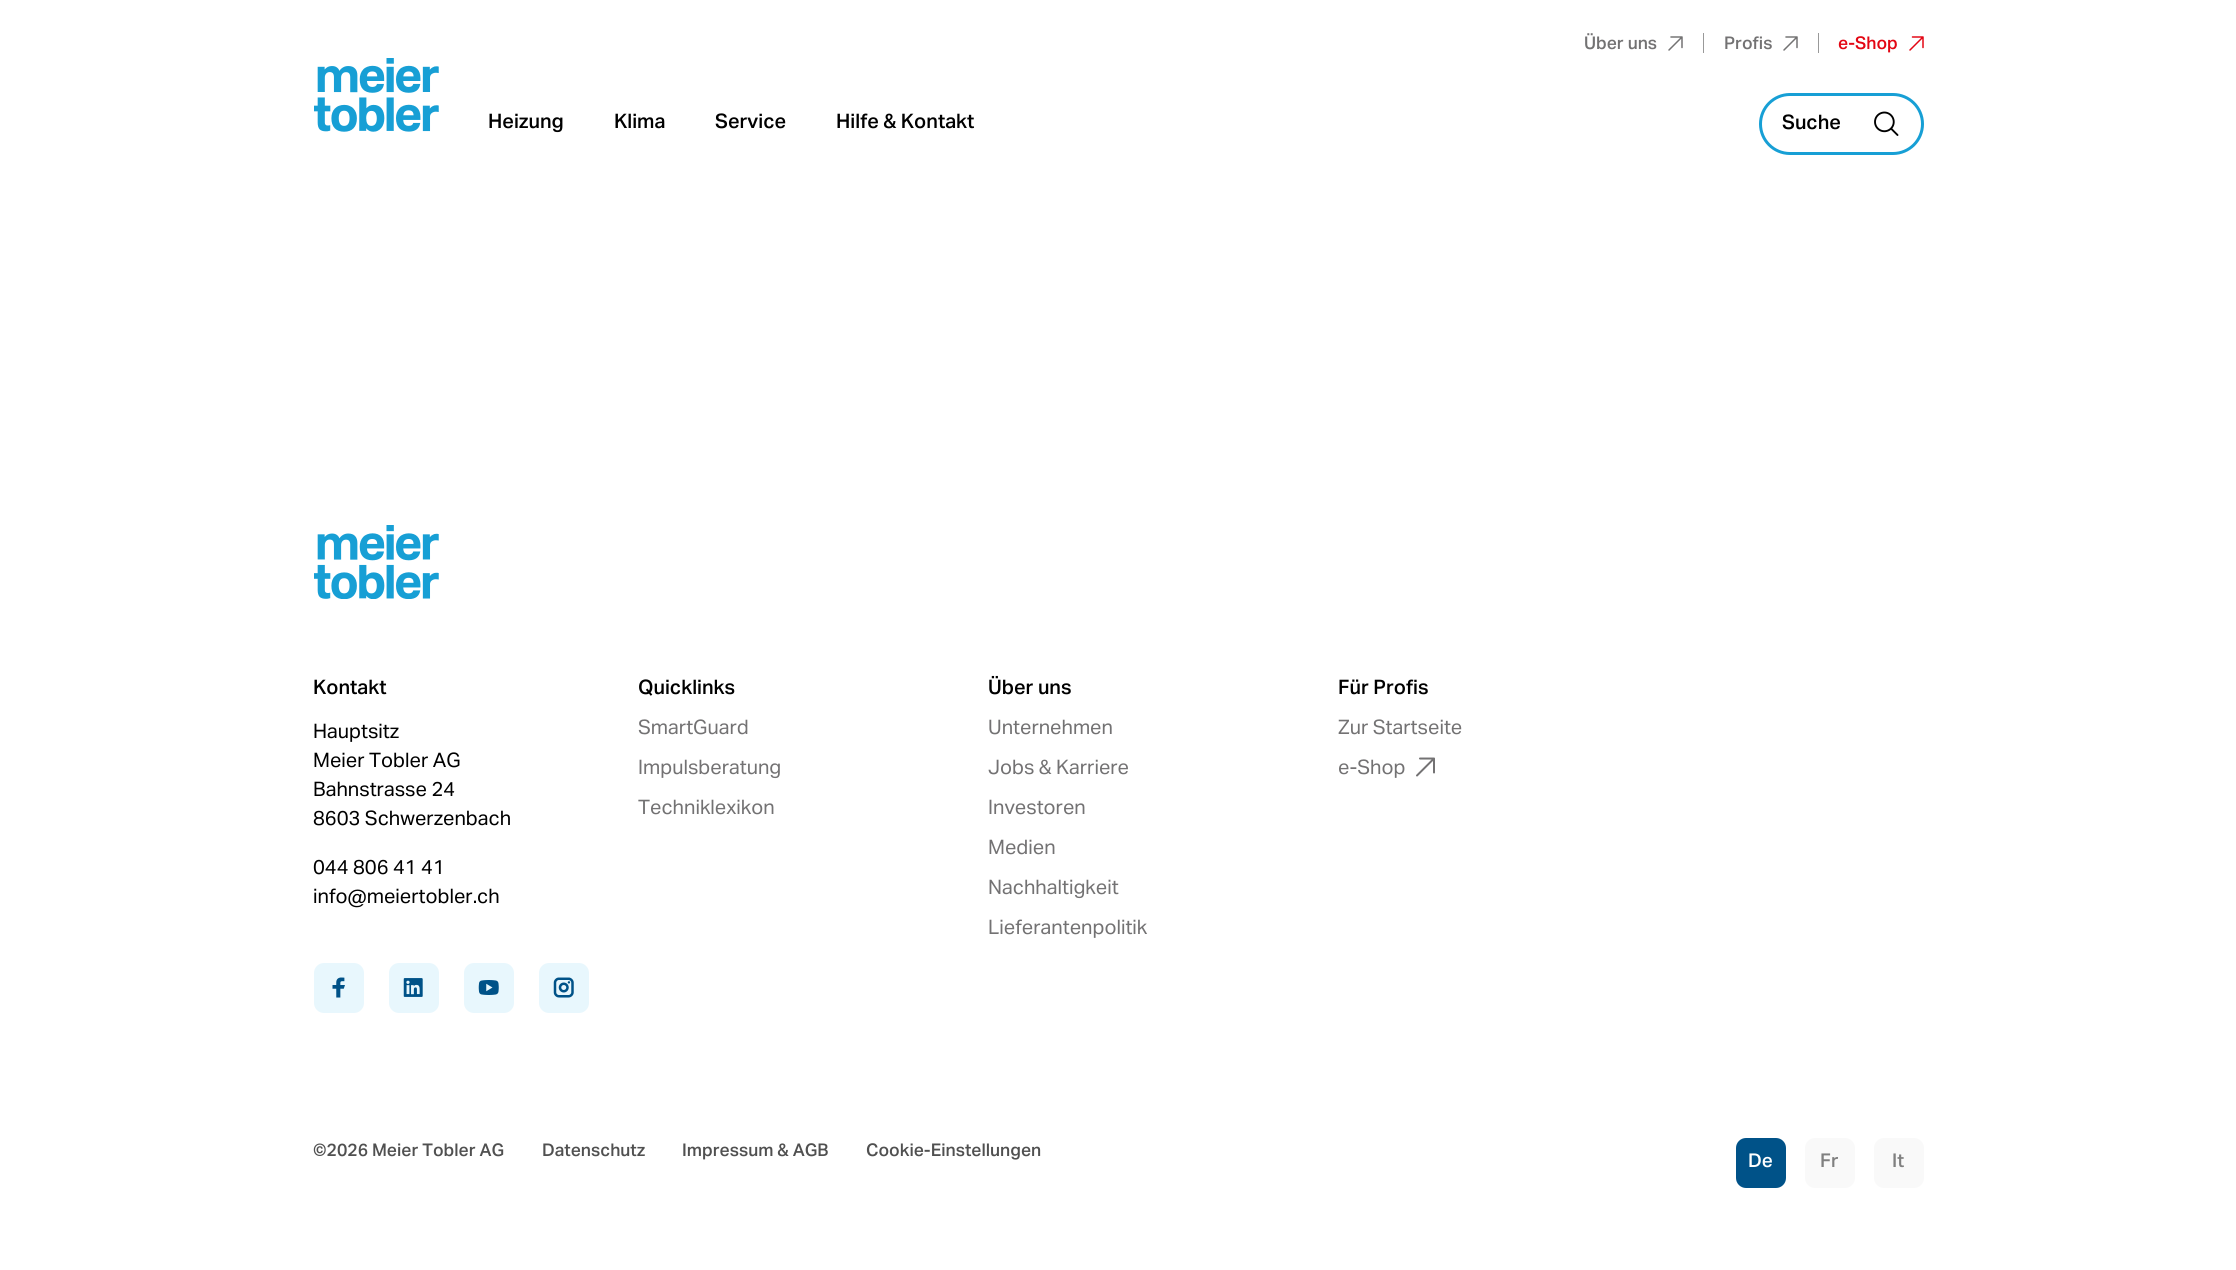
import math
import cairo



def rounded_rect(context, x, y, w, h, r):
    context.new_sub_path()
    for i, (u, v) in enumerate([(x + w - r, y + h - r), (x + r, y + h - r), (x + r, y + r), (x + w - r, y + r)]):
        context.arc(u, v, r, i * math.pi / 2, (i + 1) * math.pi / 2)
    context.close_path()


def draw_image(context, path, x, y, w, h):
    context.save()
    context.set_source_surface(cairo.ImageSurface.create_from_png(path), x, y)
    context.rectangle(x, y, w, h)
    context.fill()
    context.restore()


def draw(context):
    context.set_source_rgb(1, 1, 1)
    context.paint()
    context.new_path()
    context.move_to(1669, 50)
    context.line_to(1681, 38)
    context.move_to(1671, 37)
    context.line_to(1682, 37)
    context.line_to(1682, 47.5)
    context.set_source_rgb(115 / 255, 114 / 255, 115 / 255)
    context.set_line_width(1.5)
    context.set_line_cap(cairo.LineCap.ROUND)
    context.set_line_join(cairo.LineJoin.ROUND)
    context.stroke()
    context.set_source_rgb(153 / 255, 153 / 255, 153 / 255)
    context.rectangle(1703, 33, 1, 20)
    context.fill()
    context.new_path()
    context.move_to(1784, 50)
    context.line_to(1796, 38)
    context.move_to(1786, 37)
    context.line_to(1797, 37)
    context.line_to(1797, 47.5)
    context.set_source_rgb(115 / 255, 114 / 255, 115 / 255)
    context.stroke()
    context.set_source_rgb(153 / 255, 153 / 255, 153 / 255)
    context.rectangle(1818, 33, 1, 20)
    context.fill()
    context.new_path()
    context.move_to(1910, 50)
    context.line_to(1922, 38)
    context.move_to(1912.5, 37)
    context.line_to(1923, 37)
    context.line_to(1923, 47.5)
    context.set_source_rgb(227 / 255, 6 / 255, 19 / 255)
    context.stroke()
    draw_image(context, "images/1.png", 314, 58, 125, 74)
    rounded_rect(context, 1760.5, 94.5, 162, 59, 29.5)
    context.set_source_rgb(23 / 255, 159 / 255, 213 / 255)
    context.set_line_width(3)
    context.set_line_cap(cairo.LineCap.BUTT)
    context.set_line_join(cairo.LineJoin.MITER)
    context.stroke()
    draw_image(context, "images/2.png", 1874, 111, 25, 25)
    draw_image(context, "images/3.png", 314, 525, 125, 74)
    context.set_source_rgb(232 / 255, 247 / 255, 253 / 255)
    rounded_rect(context, 314, 963, 50, 50, 10)
    context.fill()
    draw_image(context, "images/4.png", 332, 977, 13, 21)
    rounded_rect(context, 389, 963, 50, 50, 10)
    context.fill()
    draw_image(context, "images/5.png", 403, 978, 20, 19)
    rounded_rect(context, 464, 963, 50, 50, 10)
    context.fill()
    draw_image(context, "images/6.png", 478, 980, 21, 15)
    rounded_rect(context, 539, 963, 50, 50, 10)
    context.fill()
    draw_image(context, "images/7.png", 553, 977, 21, 21)
    context.new_path()
    context.move_to(1417, 775.5)
    context.line_to(1433, 759.5)
    context.move_to(1420, 758.5)
    context.line_to(1434, 758.5)
    context.line_to(1434, 772.5)
    context.set_source_rgb(115 / 255, 114 / 255, 115 / 255)
    context.set_line_width(2)
    context.set_line_cap(cairo.LineCap.ROUND)
    context.set_line_join(cairo.LineJoin.ROUND)
    context.stroke()
    context.set_source_rgb(0, 82 / 255, 136 / 255)
    rounded_rect(context, 1736, 1138, 50, 50, 10)
    context.fill()
    context.set_source_rgb(249 / 255, 249 / 255, 249 / 255)
    rounded_rect(context, 1805, 1138, 50, 50, 10)
    context.fill()
    rounded_rect(context, 1874, 1138, 50, 50, 10)
    context.fill()
    context.select_font_face("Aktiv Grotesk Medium")
    context.set_font_size(17.5)
    context.set_source_rgb(115 / 255, 114 / 255, 115 / 255)
    context.move_to(1584, 49)
    context.show_text("Über uns")
    context.move_to(1724, 49)
    context.show_text("Profis")
    context.set_source_rgb(227 / 255, 6 / 255, 19 / 255)
    context.move_to(1838, 49)
    context.show_text("e-Shop")
    context.set_font_size(20)
    context.set_source_rgb(0, 0, 0)
    context.move_to(488, 128)
    context.show_text("Heizung")
    context.move_to(614, 128)
    context.show_text("Klima")
    context.move_to(715, 128)
    context.show_text("Service")
    context.move_to(836, 128)
    context.show_text("Hilfe & Kontakt")
    context.move_to(1782, 129)
    context.show_text("Suche")
    context.move_to(313, 694)
    context.show_text("Kontakt")
    context.select_font_face("Aktiv Grotesk")
    context.move_to(313, 738)
    context.show_text("Hauptsitz")
    context.move_to(313, 767)
    context.show_text("Meier Tobler AG")
    context.move_to(313, 796)
    context.show_text("Bahnstrasse 24")
    context.move_to(313, 825)
    context.show_text("8603 Schwerzenbach")
    context.move_to(313, 874)
    context.show_text("044 806 41 41")
    context.move_to(313, 903)
    context.show_text("info@meiertobler.ch")
    context.select_font_face("Aktiv Grotesk Medium")
    context.move_to(638, 694)
    context.show_text("Quicklinks")
    context.select_font_face("Aktiv Grotesk")
    context.set_source_rgb(115 / 255, 114 / 255, 115 / 255)
    context.move_to(638, 734)
    context.show_text("SmartGuard")
    context.move_to(638, 774)
    context.show_text("Impulsberatung")
    context.move_to(638, 814)
    context.show_text("Techniklexikon")
    context.select_font_face("Aktiv Grotesk Medium")
    context.set_source_rgb(0, 0, 0)
    context.move_to(988, 694)
    context.show_text("Über uns")
    context.select_font_face("Aktiv Grotesk")
    context.set_source_rgb(115 / 255, 114 / 255, 115 / 255)
    context.move_to(988, 734)
    context.show_text("Unternehmen")
    context.move_to(988, 774)
    context.show_text("Jobs & Karriere")
    context.move_to(988, 814)
    context.show_text("Investoren")
    context.move_to(988, 854)
    context.show_text("Medien")
    context.move_to(988, 894)
    context.show_text("Nachhaltigkeit")
    context.move_to(988, 934)
    context.show_text("Lieferantenpolitik")
    context.select_font_face("Aktiv Grotesk Medium")
    context.set_source_rgb(0, 0, 0)
    context.move_to(1338, 694)
    context.show_text("Für Profis")
    context.select_font_face("Aktiv Grotesk")
    context.set_source_rgb(115 / 255, 114 / 255, 115 / 255)
    context.move_to(1338, 734)
    context.show_text("Zur Startseite")
    context.move_to(1338, 774)
    context.show_text("e-Shop")
    context.select_font_face("Aktiv Grotesk Medium")
    context.set_font_size(17.5)
    context.set_source_rgb(80 / 255, 80 / 255, 80 / 255)
    context.move_to(313, 1156)
    context.show_text("©2026 Meier Tobler AG")
    context.move_to(542, 1156)
    context.show_text("Datenschutz")
    context.move_to(682, 1156)
    context.show_text("Impressum & AGB")
    context.move_to(866, 1156)
    context.show_text("Cookie-Einstellungen")
    context.set_font_size(19)
    context.set_source_rgb(1, 1, 1)
    context.move_to(1748, 1167)
    context.show_text("De")
    context.set_source_rgb(128 / 255, 128 / 255, 128 / 255)
    context.move_to(1820, 1167)
    context.show_text("Fr")
    context.move_to(1892, 1167)
    context.show_text("It")


surface = cairo.ImageSurface(cairo.Format.RGB24, 2236, 1270)
context = cairo.Context(surface)
options = cairo.FontOptions()
options.set_hint_metrics(cairo.HintMetrics.OFF)
options.set_hint_style(cairo.HintStyle.NONE)
context.set_font_options(options)
context.set_miter_limit(4)
draw(context)
surface.write_to_png("out.png")
